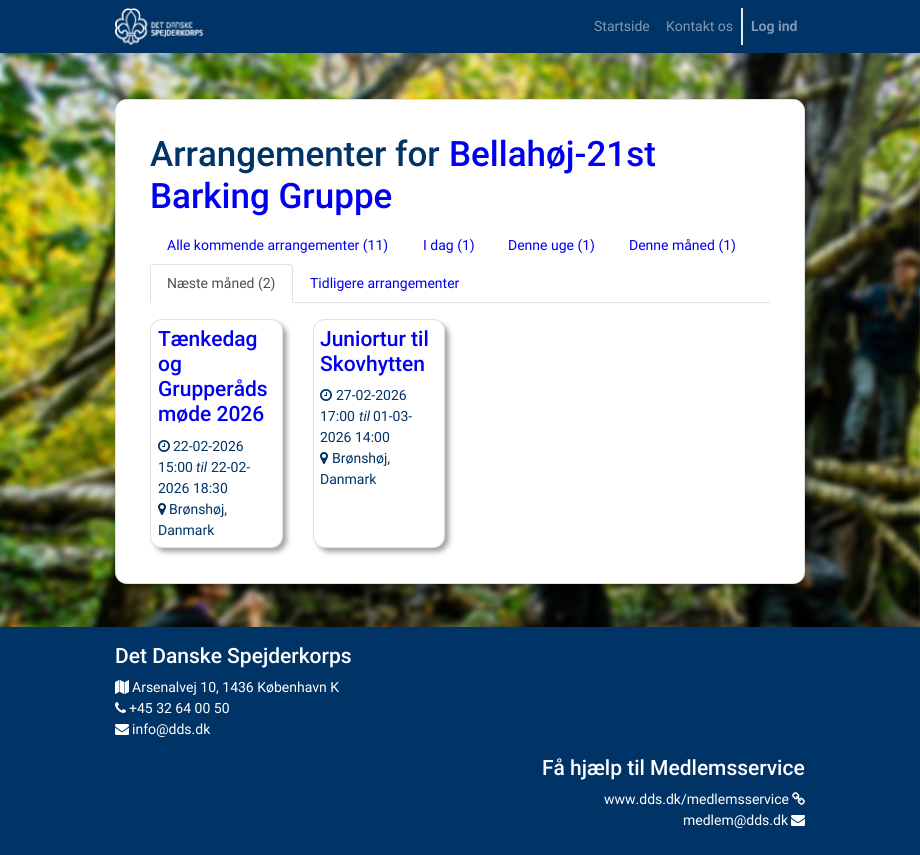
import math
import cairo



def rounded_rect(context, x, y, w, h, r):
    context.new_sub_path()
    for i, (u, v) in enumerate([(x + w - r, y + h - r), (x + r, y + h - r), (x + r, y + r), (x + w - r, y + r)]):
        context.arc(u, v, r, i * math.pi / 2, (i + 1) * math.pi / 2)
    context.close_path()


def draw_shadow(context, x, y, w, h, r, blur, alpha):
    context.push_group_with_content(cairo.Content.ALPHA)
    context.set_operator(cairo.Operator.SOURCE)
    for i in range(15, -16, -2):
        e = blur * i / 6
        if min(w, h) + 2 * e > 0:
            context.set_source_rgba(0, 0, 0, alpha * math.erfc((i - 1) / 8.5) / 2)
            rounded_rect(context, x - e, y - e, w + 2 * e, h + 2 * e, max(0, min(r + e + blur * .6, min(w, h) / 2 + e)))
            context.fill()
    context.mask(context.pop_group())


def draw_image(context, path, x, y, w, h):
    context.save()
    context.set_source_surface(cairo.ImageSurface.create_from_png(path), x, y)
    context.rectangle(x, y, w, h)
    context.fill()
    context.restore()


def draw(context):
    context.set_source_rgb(1, 1, 1)
    context.paint()
    context.set_source_rgb(0, 51 / 255, 102 / 255)
    context.rectangle(0, 0, 920, 53)
    context.fill()
    draw_image(context, "images/1.png", 115, 8, 88, 37)
    context.set_source_rgb(233 / 255, 236 / 255, 239 / 255)
    context.rectangle(741, 8, 2, 37)
    context.fill()
    draw_image(context, "images/2.png", 0, 53, 920, 574)
    context.set_source_rgb(0, 0, 0)
    draw_shadow(context, 119, 103, 690, 485, 12, 2.5, 0.35)
    context.set_source_rgb(1, 1, 1)
    rounded_rect(context, 115, 99, 690, 485, 12)
    context.fill()
    rounded_rect(context, 115.5, 99.5, 689, 484, 11.5)
    context.set_source_rgba(0, 0, 0, 0.12)
    context.set_line_width(1)
    context.stroke()
    context.set_source_rgb(222 / 255, 226 / 255, 230 / 255)
    context.rectangle(293, 302, 477, 1)
    context.fill()
    context.new_path()
    context.move_to(154, 264)
    context.line_to(151, 265)
    context.line_to(152, 266)
    context.line_to(154, 265)
    context.line_to(289, 265)
    context.line_to(291, 266)
    context.line_to(292, 265)
    context.line_to(289, 264)
    context.close_path()
    context.fill()
    context.new_path()
    context.move_to(293, 303)
    context.line_to(293, 268)
    context.curve_to(293, 267, 292.5, 266, 292, 265)
    context.line_to(291, 266)
    context.curve_to(292, 266, 292, 267, 292, 268)
    context.line_to(292, 302)
    context.close_path()
    context.fill()
    context.set_source_rgb(1, 1, 1)
    context.new_path()
    context.move_to(293, 303)
    context.line_to(292, 302)
    context.line_to(151, 302)
    context.line_to(150, 303)
    context.close_path()
    context.fill()
    context.set_source_rgb(222 / 255, 226 / 255, 230 / 255)
    context.new_path()
    context.move_to(150, 303)
    context.line_to(151, 302)
    context.line_to(151, 268)
    context.curve_to(151, 267, 151, 266, 152, 266)
    context.line_to(151, 265)
    context.curve_to(150.5, 266, 150, 267, 150, 268)
    context.close_path()
    context.fill()
    context.set_source_rgb(0, 0, 0)
    draw_shadow(context, 154, 323, 133, 229, 12, 2.5, 0.35)
    context.set_source_rgb(1, 1, 1)
    rounded_rect(context, 150, 319, 133, 229, 12)
    context.fill()
    rounded_rect(context, 150.5, 319.5, 132, 228, 11.5)
    context.set_source_rgba(0, 0, 0, 0.12)
    context.stroke()
    draw_image(context, "images/3.png", 158, 440, 12, 12)
    draw_image(context, "images/4.png", 158, 503, 8, 12)
    context.set_source_rgb(0, 0, 0)
    draw_shadow(context, 317, 323, 132, 229, 12, 2.5, 0.35)
    context.set_source_rgb(1, 1, 1)
    rounded_rect(context, 313, 319, 132, 229, 12)
    context.fill()
    rounded_rect(context, 313.5, 319.5, 131, 228, 11.5)
    context.set_source_rgba(0, 0, 0, 0.12)
    context.stroke()
    draw_image(context, "images/3.png", 320, 389, 12, 12)
    draw_image(context, "images/4.png", 320, 452, 8, 12)
    context.set_source_rgb(0, 51 / 255, 102 / 255)
    context.rectangle(0, 627, 920, 228)
    context.fill()
    draw_image(context, "images/5.png", 115, 680, 14, 14)
    draw_image(context, "images/6.png", 115, 702, 11, 11)
    draw_image(context, "images/7.png", 115, 724, 14, 11)
    draw_image(context, "images/8.png", 792, 792, 13, 13)
    draw_image(context, "images/7.png", 791, 815, 14, 11)
    context.select_font_face("Roboto")
    context.set_font_size(14)
    context.set_source_rgb(128 / 255, 153 / 255, 179 / 255)
    context.move_to(594, 31)
    context.show_text("Startside")
    context.move_to(666, 31)
    context.show_text("Kontakt os")
    context.select_font_face("Roboto", cairo.FontSlant.NORMAL, cairo.FontWeight.BOLD)
    context.move_to(751, 31)
    context.show_text("Log ind")
    context.select_font_face("Roboto Medium")
    context.set_font_size(35)
    context.set_source_rgb(0, 51 / 255, 102 / 255)
    context.move_to(150, 166)
    context.show_text("Arrangementer for")
    context.set_source_rgb(0, 0, 238 / 255)
    context.move_to(449, 166)
    context.show_text("Bellahøj-21st")
    context.move_to(150, 208)
    context.show_text("Barking Gruppe")
    context.select_font_face("Roboto")
    context.set_font_size(14)
    context.move_to(167, 250)
    context.show_text("Alle kommende arrangementer (11)")
    context.move_to(423, 250)
    context.show_text("I dag (1)")
    context.move_to(508, 250)
    context.show_text("Denne uge (1)")
    context.move_to(629, 250)
    context.show_text("Denne måned (1)")
    context.set_source_rgb(73 / 255, 80 / 255, 87 / 255)
    context.move_to(167, 288)
    context.show_text("Næste måned (2)")
    context.set_source_rgb(0, 0, 238 / 255)
    context.move_to(310, 288)
    context.show_text("Tidligere arrangementer")
    context.select_font_face("Roboto Medium")
    context.set_font_size(21)
    context.move_to(158, 346)
    context.show_text("Tænkedag")
    context.move_to(158, 371)
    context.show_text("og")
    context.move_to(158, 396)
    context.show_text("Grupperåds")
    context.move_to(158, 421)
    context.show_text("møde 2026")
    context.select_font_face("Roboto")
    context.set_font_size(14)
    context.set_source_rgb(0, 51 / 255, 102 / 255)
    context.move_to(173, 451)
    context.show_text("22-02-2026")
    context.move_to(158, 472)
    context.show_text("15:00")
    context.select_font_face("Roboto", cairo.FontSlant.ITALIC)
    context.move_to(196, 472)
    context.show_text("til")
    context.select_font_face("Roboto")
    context.move_to(211, 472)
    context.show_text("22-02-")
    context.move_to(158, 493)
    context.show_text("2026 18:30")
    context.move_to(169, 514)
    context.show_text("Brønshøj,")
    context.move_to(158, 535)
    context.show_text("Danmark")
    context.select_font_face("Roboto Medium")
    context.set_font_size(21)
    context.set_source_rgb(0, 0, 238 / 255)
    context.move_to(320, 346)
    context.show_text("Juniortur til")
    context.move_to(320, 371)
    context.show_text("Skovhytten")
    context.select_font_face("Roboto")
    context.set_font_size(14)
    context.set_source_rgb(0, 51 / 255, 102 / 255)
    context.move_to(336, 400)
    context.show_text("27-02-2026")
    context.move_to(320, 421)
    context.show_text("17:00")
    context.select_font_face("Roboto", cairo.FontSlant.ITALIC)
    context.move_to(359, 421)
    context.show_text("til")
    context.select_font_face("Roboto")
    context.move_to(373, 421)
    context.show_text("01-03-")
    context.move_to(320, 442)
    context.show_text("2026 14:00")
    context.move_to(332, 463)
    context.show_text("Brønshøj,")
    context.move_to(320, 484)
    context.show_text("Danmark")
    context.select_font_face("Roboto Medium")
    context.set_font_size(21)
    context.set_source_rgb(1, 1, 1)
    context.move_to(115, 663)
    context.show_text("Det Danske Spejderkorps")
    context.select_font_face("Roboto")
    context.set_font_size(14)
    context.move_to(132, 692)
    context.show_text("Arsenalvej 10, 1436 København K")
    context.move_to(129, 713)
    context.show_text("+45 32 64 00 50")
    context.move_to(132, 734)
    context.show_text("info@dds.dk")
    context.select_font_face("Roboto Medium")
    context.set_font_size(21)
    context.move_to(542, 775)
    context.show_text("Få hjælp til Medlemsservice")
    context.select_font_face("Roboto")
    context.set_font_size(14)
    context.move_to(604, 804)
    context.show_text("www.dds.dk/medlemsservice")
    context.move_to(683, 825)
    context.show_text("medlem@dds.dk")


surface = cairo.ImageSurface(cairo.Format.RGB24, 920, 855)
context = cairo.Context(surface)
options = cairo.FontOptions()
options.set_hint_metrics(cairo.HintMetrics.OFF)
options.set_hint_style(cairo.HintStyle.NONE)
context.set_font_options(options)
context.set_miter_limit(4)
draw(context)
surface.write_to_png("out.png")
